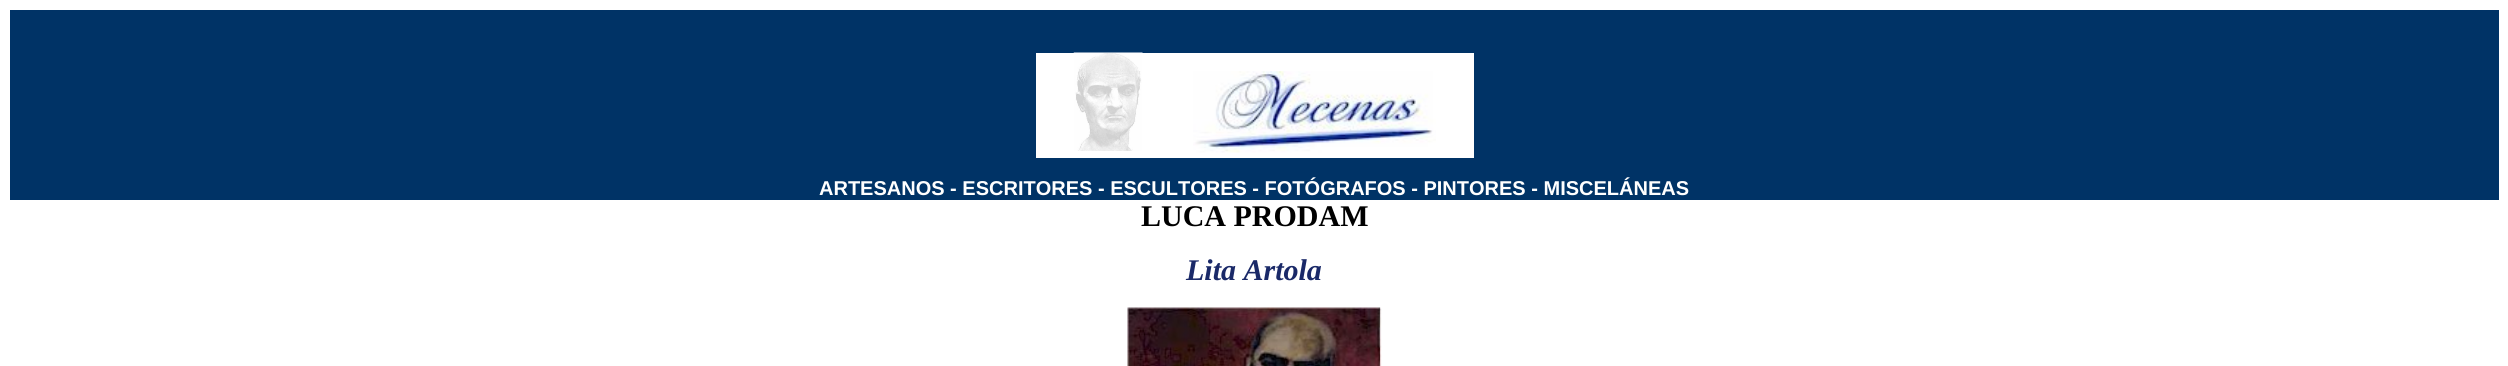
import math
import cairo



def draw_image(context, path, x, y, w, h):
    context.save()
    context.set_source_surface(cairo.ImageSurface.create_from_png(path), x, y)
    context.rectangle(x, y, w, h)
    context.fill()
    context.restore()


def draw(context):
    context.set_source_rgb(1, 1, 1)
    context.paint()
    context.set_source_rgb(0, 51 / 255, 102 / 255)
    context.rectangle(10, 10, 2489, 190)
    context.fill()
    context.set_source_rgb(1, 1, 1)
    context.rectangle(1036, 53, 438, 105)
    context.fill()
    draw_image(context, "images/1.png", 1073, 52, 70, 99)
    draw_image(context, "images/2.png", 1193, 71, 243, 82)
    draw_image(context, "images/3.png", 1127, 307, 255, 59)
    context.select_font_face("Liberation Sans", cairo.FontSlant.NORMAL, cairo.FontWeight.BOLD)
    context.set_font_size(20)
    context.move_to(819, 195)
    context.show_text("ARTESANOS - ESCRITORES - ESCULTORES - FOTÓGRAFOS - PINTORES - MISCELÁNEAS")
    context.select_font_face("Liberation Serif", cairo.FontSlant.NORMAL, cairo.FontWeight.BOLD)
    context.set_font_size(30)
    context.set_source_rgb(0, 0, 0)
    context.move_to(1141, 226)
    context.show_text("LUCA PRODAM")
    context.select_font_face("Liberation Serif", cairo.FontSlant.ITALIC, cairo.FontWeight.BOLD)
    context.set_source_rgb(26 / 255, 41 / 255, 104 / 255)
    context.move_to(1186, 280)
    context.show_text("Lita Artola")


surface = cairo.ImageSurface(cairo.Format.RGB24, 2508, 366)
context = cairo.Context(surface)
options = cairo.FontOptions()
options.set_hint_metrics(cairo.HintMetrics.OFF)
options.set_hint_style(cairo.HintStyle.NONE)
context.set_font_options(options)
context.set_miter_limit(4)
draw(context)
surface.write_to_png("out.png")
